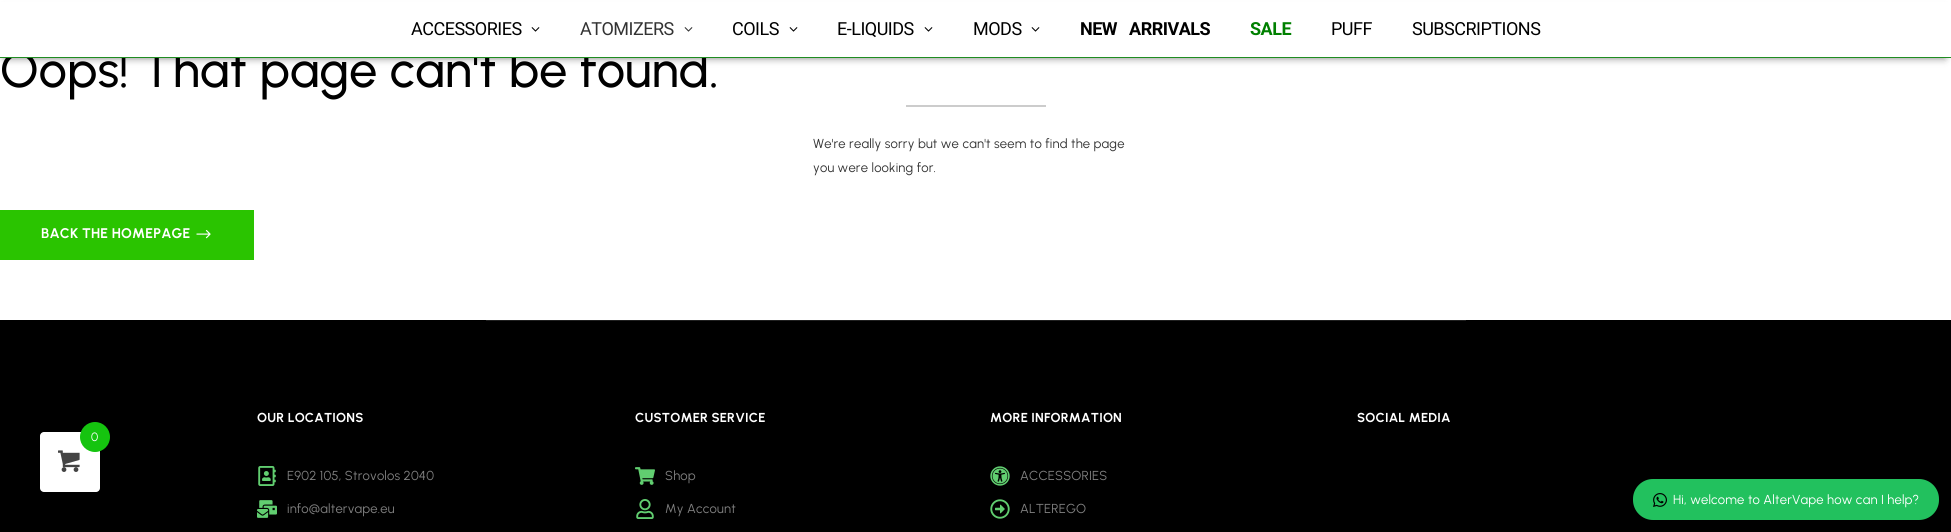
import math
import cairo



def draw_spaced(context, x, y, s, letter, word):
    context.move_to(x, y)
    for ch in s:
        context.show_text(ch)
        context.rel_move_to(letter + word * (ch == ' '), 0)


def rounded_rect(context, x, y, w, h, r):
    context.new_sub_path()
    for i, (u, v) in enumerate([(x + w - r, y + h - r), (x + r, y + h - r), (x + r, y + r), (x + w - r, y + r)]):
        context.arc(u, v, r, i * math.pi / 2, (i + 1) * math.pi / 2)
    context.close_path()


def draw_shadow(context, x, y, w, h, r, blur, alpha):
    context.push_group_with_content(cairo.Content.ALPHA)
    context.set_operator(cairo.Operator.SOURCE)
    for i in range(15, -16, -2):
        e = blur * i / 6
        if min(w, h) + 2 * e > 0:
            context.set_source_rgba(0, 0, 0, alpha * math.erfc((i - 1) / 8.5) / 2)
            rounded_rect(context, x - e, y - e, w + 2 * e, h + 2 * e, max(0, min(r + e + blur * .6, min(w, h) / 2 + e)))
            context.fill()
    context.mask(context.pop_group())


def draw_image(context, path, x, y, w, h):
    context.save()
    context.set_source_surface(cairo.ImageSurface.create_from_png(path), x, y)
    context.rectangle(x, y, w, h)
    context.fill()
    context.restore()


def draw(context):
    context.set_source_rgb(1, 1, 1)
    context.paint()
    context.set_source_rgb(0, 0, 0)
    draw_shadow(context, 4, 10, 1941, 48, 0, 4, 0.5)
    context.set_source_rgb(204 / 255, 204 / 255, 204 / 255)
    context.rectangle(906, 105, 140, 2)
    context.fill()
    context.set_source_rgb(42 / 255, 196 / 255, 0)
    context.rectangle(0, 210, 254, 50)
    context.fill()
    draw_image(context, "images/3.png", 196, 230, 15, 9)
    context.set_source_rgb(0, 0, 0)
    context.rectangle(0, 320, 1951, 212)
    context.fill()
    context.set_source_rgb(1, 1, 1)
    rounded_rect(context, 40, 432, 60, 60, 4)
    context.fill()
    context.set_source_rgb(21 / 255, 196 / 255, 15 / 255)
    context.arc(95, 437, 15, 0, 2 * math.pi)
    context.fill()
    draw_image(context, "images/4.png", 58, 450, 22, 22)
    context.set_source_rgb(32 / 255, 32 / 255, 32 / 255)
    context.rectangle(486, 320, 980, 1)
    context.fill()
    draw_image(context, "images/5.png", 258, 466, 18, 20)
    draw_image(context, "images/6.png", 257, 500, 20, 18)
    draw_image(context, "images/7.png", 635, 467, 20, 18)
    draw_image(context, "images/8.png", 636, 499, 18, 20)
    draw_image(context, "images/9.png", 990, 466, 20, 20)
    draw_image(context, "images/10.png", 990, 499, 20, 20)
    context.set_source_rgb(34 / 255, 193 / 255, 94 / 255)
    rounded_rect(context, 1633, 479, 306, 41, 20)
    context.fill()
    draw_image(context, "images/11.png", 1653, 493, 14, 14)
    context.select_font_face("Urbanist Medium")
    context.set_font_size(50)
    context.set_source_rgb(0, 0, 0)
    draw_spaced(context, 0, 87, "Oops! That page can't be found.", 0.2, 0)
    context.set_source_rgb(1, 1, 1)
    context.rectangle(0, 2, 1951, 55)
    context.fill()
    context.select_font_face("Roboto")
    context.set_font_size(18)
    context.set_source_rgb(0, 0, 0)
    draw_spaced(context, 1412, 35, "SUBSCRIPTIONS", -0.5, 0)
    draw_spaced(context, 1331, 35, "PUFF", -0.5, 0)
    context.select_font_face("Roboto", cairo.FontSlant.NORMAL, cairo.FontWeight.BOLD)
    context.set_source_rgb(0, 128 / 255, 0)
    draw_spaced(context, 1250, 35, "SALE", -0.5, 0)
    context.set_source_rgb(0, 0, 0)
    draw_spaced(context, 1080, 35, "NEW ARRIVALS", -0.5, 8)
    draw_image(context, "images/1.png", 1031, 27, 9, 5)
    context.select_font_face("Roboto")
    draw_spaced(context, 973, 35, "MODS", -0.5, 0)
    draw_image(context, "images/1.png", 924, 27, 9, 5)
    draw_spaced(context, 837, 35, "E-LIQUIDS", -0.5, 0)
    draw_image(context, "images/1.png", 789, 27, 9, 5)
    draw_spaced(context, 732, 35, "COILS", -0.5, 0)
    draw_image(context, "images/2.png", 684, 27, 9, 5)
    context.set_source_rgb(51 / 255, 51 / 255, 51 / 255)
    draw_spaced(context, 580, 35, "ATOMIZERS", -0.5, 0)
    draw_image(context, "images/1.png", 531, 27, 9, 5)
    context.set_source_rgb(0, 0, 0)
    draw_spaced(context, 411, 35, "ACCESSORIES", -0.5, 0)
    context.set_source_rgb(31 / 255, 141 / 255, 33 / 255)
    context.rectangle(0, 57, 1951, 1)
    context.fill()
    context.select_font_face("Urbanist")
    context.set_font_size(13)
    context.set_source_rgb(51 / 255, 51 / 255, 51 / 255)
    draw_spaced(context, 813, 148, "We're really sorry but we can't seem to find the page", 0.2, 0)
    draw_spaced(context, 813, 172, "you were looking for.", 0.2, 0)
    context.select_font_face("Urbanist", cairo.FontSlant.NORMAL, cairo.FontWeight.BOLD)
    context.set_font_size(14)
    context.set_source_rgb(1, 1, 1)
    draw_spaced(context, 41, 238, "BACK THE HOMEPAGE", 0.2, 0)
    context.select_font_face("Urbanist")
    context.set_font_size(12)
    draw_spaced(context, 91, 441, "0", 0.2, 0)
    context.select_font_face("Urbanist", cairo.FontSlant.NORMAL, cairo.FontWeight.BOLD)
    context.set_font_size(13)
    draw_spaced(context, 257, 422, "OUR LOCATIONS", 0.2, 0)
    context.select_font_face("Urbanist")
    context.set_source_rgb(128 / 255, 128 / 255, 128 / 255)
    draw_spaced(context, 287, 480, "E902 105, Strovolos 2040", 0.2, 0)
    draw_spaced(context, 287, 513, "info@altervape.eu", 0.2, 0)
    context.select_font_face("Urbanist", cairo.FontSlant.NORMAL, cairo.FontWeight.BOLD)
    context.set_source_rgb(1, 1, 1)
    draw_spaced(context, 635, 422, "CUSTOMER SERVICE", 0.2, 0)
    context.select_font_face("Urbanist")
    context.set_source_rgb(128 / 255, 128 / 255, 128 / 255)
    draw_spaced(context, 665, 480, "Shop", 0.2, 0)
    draw_spaced(context, 665, 513, "My Account", 0.2, 0)
    context.select_font_face("Urbanist", cairo.FontSlant.NORMAL, cairo.FontWeight.BOLD)
    context.set_source_rgb(1, 1, 1)
    draw_spaced(context, 990, 422, "MORE INFORMATION", 0.2, 0)
    context.select_font_face("Urbanist")
    context.set_source_rgb(128 / 255, 128 / 255, 128 / 255)
    draw_spaced(context, 1020, 480, "ACCESSORIES", 0.2, 0)
    draw_spaced(context, 1020, 513, "ALTEREGO", 0.2, 0)
    context.select_font_face("Urbanist", cairo.FontSlant.NORMAL, cairo.FontWeight.BOLD)
    context.set_source_rgb(1, 1, 1)
    draw_spaced(context, 1357, 422, "SOCIAL MEDIA", 0.2, 0)
    context.select_font_face("Urbanist")
    draw_spaced(context, 1673, 504, "Hi, welcome to AlterVape how can I help?", 0.2, 0)


surface = cairo.ImageSurface(cairo.Format.RGB24, 1951, 532)
context = cairo.Context(surface)
options = cairo.FontOptions()
options.set_hint_metrics(cairo.HintMetrics.OFF)
options.set_hint_style(cairo.HintStyle.NONE)
context.set_font_options(options)
context.set_miter_limit(4)
draw(context)
surface.write_to_png("out.png")
